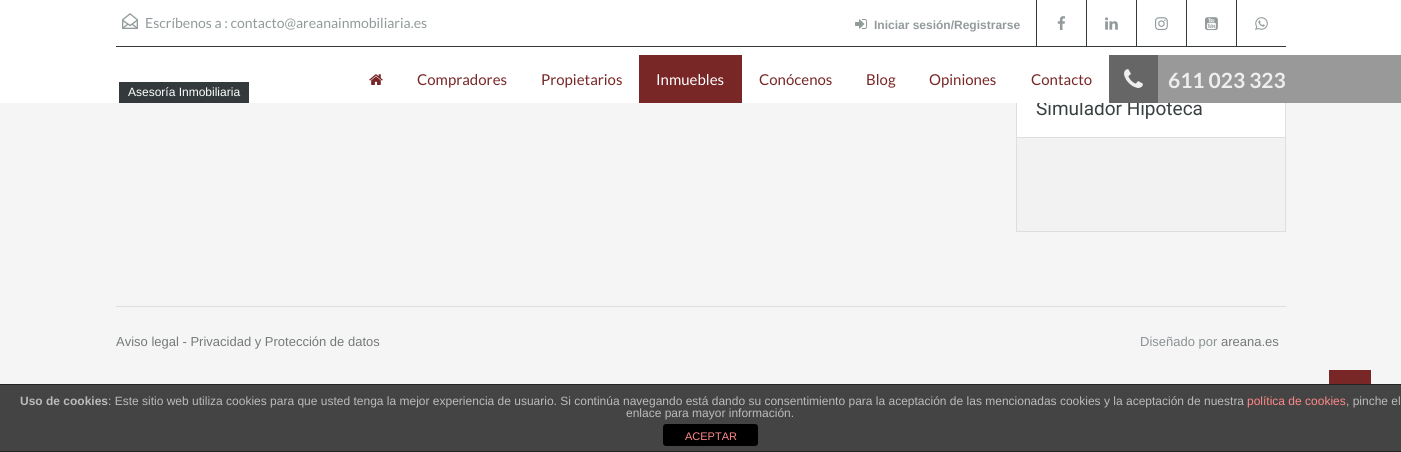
import math
import cairo



def rounded_rect(context, x, y, w, h, r):
    context.new_sub_path()
    for i, (u, v) in enumerate([(x + w - r, y + h - r), (x + r, y + h - r), (x + r, y + r), (x + w - r, y + r)]):
        context.arc(u, v, r, i * math.pi / 2, (i + 1) * math.pi / 2)
    context.close_path()


def draw_image(context, path, x, y, w, h):
    context.save()
    context.set_source_surface(cairo.ImageSurface.create_from_png(path), x, y)
    context.rectangle(x, y, w, h)
    context.fill()
    context.restore()


def draw(context):
    context.set_source_rgb(245 / 255, 245 / 255, 245 / 255)
    context.paint()
    context.set_source_rgb(242 / 255, 242 / 255, 242 / 255)
    context.rectangle(1017, 138, 268, 93)
    context.fill()
    context.rectangle(1016.5, 81.5, 269, 150)
    context.set_source_rgb(222 / 255, 222 / 255, 222 / 255)
    context.set_line_width(1)
    context.stroke()
    context.set_source_rgb(1, 1, 1)
    context.rectangle(1017, 103, 268, 34)
    context.fill()
    context.set_source_rgb(222 / 255, 222 / 255, 222 / 255)
    context.rectangle(1017, 137, 268, 1)
    context.fill()
    context.rectangle(116, 306, 1170, 1)
    context.fill()
    context.set_source_rgb(121 / 255, 38 / 255, 38 / 255)
    context.rectangle(1329, 370, 42, 14)
    context.fill()
    context.set_source_rgb(68 / 255, 68 / 255, 68 / 255)
    context.rectangle(0, 385, 1401, 66)
    context.fill()
    context.set_source_rgb(34 / 255, 34 / 255, 34 / 255)
    context.rectangle(0, 384, 1401, 1)
    context.fill()
    context.rectangle(0, 451, 1401, 1)
    context.fill()
    context.set_source_rgb(0, 0, 0)
    rounded_rect(context, 663, 424, 95, 22, 3)
    context.fill()
    context.select_font_face("Roboto")
    context.set_font_size(19)
    context.set_source_rgb(57 / 255, 64 / 255, 65 / 255)
    context.move_to(1036, 115)
    context.show_text("Simulador Hipoteca")
    context.set_source_rgb(1, 1, 1)
    context.rectangle(0, 0, 1401, 103)
    context.fill()
    context.select_font_face("Lato")
    context.set_font_size(15)
    context.set_source_rgb(121 / 255, 38 / 255, 38 / 255)
    context.move_to(1031, 85)
    context.show_text("Contacto")
    context.move_to(929, 85)
    context.show_text("Opiniones")
    context.move_to(866, 85)
    context.show_text("Blog")
    context.move_to(759, 85)
    context.show_text("Conócenos")
    context.rectangle(639, 55, 103, 48)
    context.fill()
    context.set_source_rgb(1, 1, 1)
    context.move_to(656, 85)
    context.show_text("Inmuebles")
    context.set_source_rgb(121 / 255, 38 / 255, 38 / 255)
    context.move_to(541, 85)
    context.show_text("Propietarios")
    context.move_to(417, 85)
    context.show_text("Compradores")
    draw_image(context, "images/8.png", 369, 74, 14, 11)
    context.set_source_rgb(102 / 255, 102 / 255, 102 / 255)
    context.rectangle(1109, 55, 49, 48)
    context.fill()
    draw_image(context, "images/9.png", 1124, 69, 19, 19)
    context.set_source_rgb(153 / 255, 153 / 255, 153 / 255)
    context.rectangle(1158, 55, 243, 48)
    context.fill()
    context.select_font_face("Lato", cairo.FontSlant.NORMAL, cairo.FontWeight.BOLD)
    context.set_font_size(21)
    context.set_source_rgb(238 / 255, 238 / 255, 238 / 255)
    context.move_to(1168, 88)
    context.show_text("611 023 323")
    draw_image(context, "images/1.png", 122, 13, 16, 16)
    context.set_source_rgb(52 / 255, 58 / 255, 59 / 255)
    context.rectangle(119, 82, 130, 21)
    context.fill()
    context.select_font_face("Liberation Sans")
    context.set_font_size(12)
    context.set_source_rgb(1, 1, 1)
    context.move_to(128, 96)
    context.show_text("Asesoría Inmobiliaria")
    context.select_font_face("Liberation Sans", cairo.FontSlant.NORMAL, cairo.FontWeight.BOLD)
    context.set_source_rgb(146 / 255, 154 / 255, 155 / 255)
    context.move_to(874, 29)
    context.show_text("Iniciar sesión/Registrarse")
    draw_image(context, "images/2.png", 855, 19, 12, 10)
    draw_image(context, "images/7.png", 1255, 17, 13, 13)
    context.set_source_rgb(52 / 255, 58 / 255, 59 / 255)
    context.rectangle(1236, 0, 1, 46)
    context.fill()
    draw_image(context, "images/6.png", 1205, 17, 13, 14)
    context.rectangle(1186, 0, 1, 46)
    context.fill()
    draw_image(context, "images/5.png", 1155, 17, 13, 14)
    context.rectangle(1136, 0, 1, 46)
    context.fill()
    draw_image(context, "images/4.png", 1105, 17, 13, 13)
    context.rectangle(1086, 0, 1, 46)
    context.fill()
    draw_image(context, "images/3.png", 1057, 16, 8, 15)
    context.rectangle(1036, 0, 1, 46)
    context.fill()
    context.select_font_face("Lato")
    context.set_font_size(14)
    context.set_source_rgb(146 / 255, 154 / 255, 155 / 255)
    context.move_to(145, 28)
    context.show_text("Escríbenos a : contacto@areanainmobiliaria.es")
    context.set_source_rgb(52 / 255, 58 / 255, 59 / 255)
    context.rectangle(116, 46, 1170, 1)
    context.fill()
    context.select_font_face("Liberation Sans")
    context.set_font_size(13)
    context.set_source_rgb(117 / 255, 121 / 255, 122 / 255)
    context.move_to(116, 346)
    context.show_text("Aviso legal - Privacidad y Protección de datos")
    context.set_source_rgb(139 / 255, 146 / 255, 147 / 255)
    context.move_to(1140, 346)
    context.show_text("Diseñado por")
    context.set_source_rgb(117 / 255, 121 / 255, 122 / 255)
    context.move_to(1221, 346)
    context.show_text("areana.es")
    context.select_font_face("Liberation Sans", cairo.FontSlant.NORMAL, cairo.FontWeight.BOLD)
    context.set_font_size(12)
    context.set_source_rgb(187 / 255, 187 / 255, 187 / 255)
    context.move_to(20, 405)
    context.show_text("Uso de cookies")
    context.select_font_face("Liberation Sans")
    context.move_to(108, 405)
    context.show_text(": Este sitio web utiliza cookies para que usted tenga la mejor experiencia de usuario. Si continúa navegando está dando su consentimiento para la aceptación de las mencionadas cookies y la aceptación de nuestra")
    context.set_source_rgb(1, 136 / 255, 136 / 255)
    context.move_to(1247, 405)
    context.show_text("política de cookies")
    context.set_source_rgb(187 / 255, 187 / 255, 187 / 255)
    context.move_to(1346, 405)
    context.show_text(", pinche el")
    context.move_to(626, 417)
    context.show_text("enlace para mayor información.")
    context.set_font_size(11)
    context.set_source_rgb(1, 136 / 255, 136 / 255)
    context.move_to(685, 440)
    context.show_text("ACEPTAR")


surface = cairo.ImageSurface(cairo.Format.RGB24, 1401, 452)
context = cairo.Context(surface)
options = cairo.FontOptions()
options.set_hint_metrics(cairo.HintMetrics.OFF)
options.set_hint_style(cairo.HintStyle.NONE)
context.set_font_options(options)
context.set_miter_limit(4)
draw(context)
surface.write_to_png("out.png")
